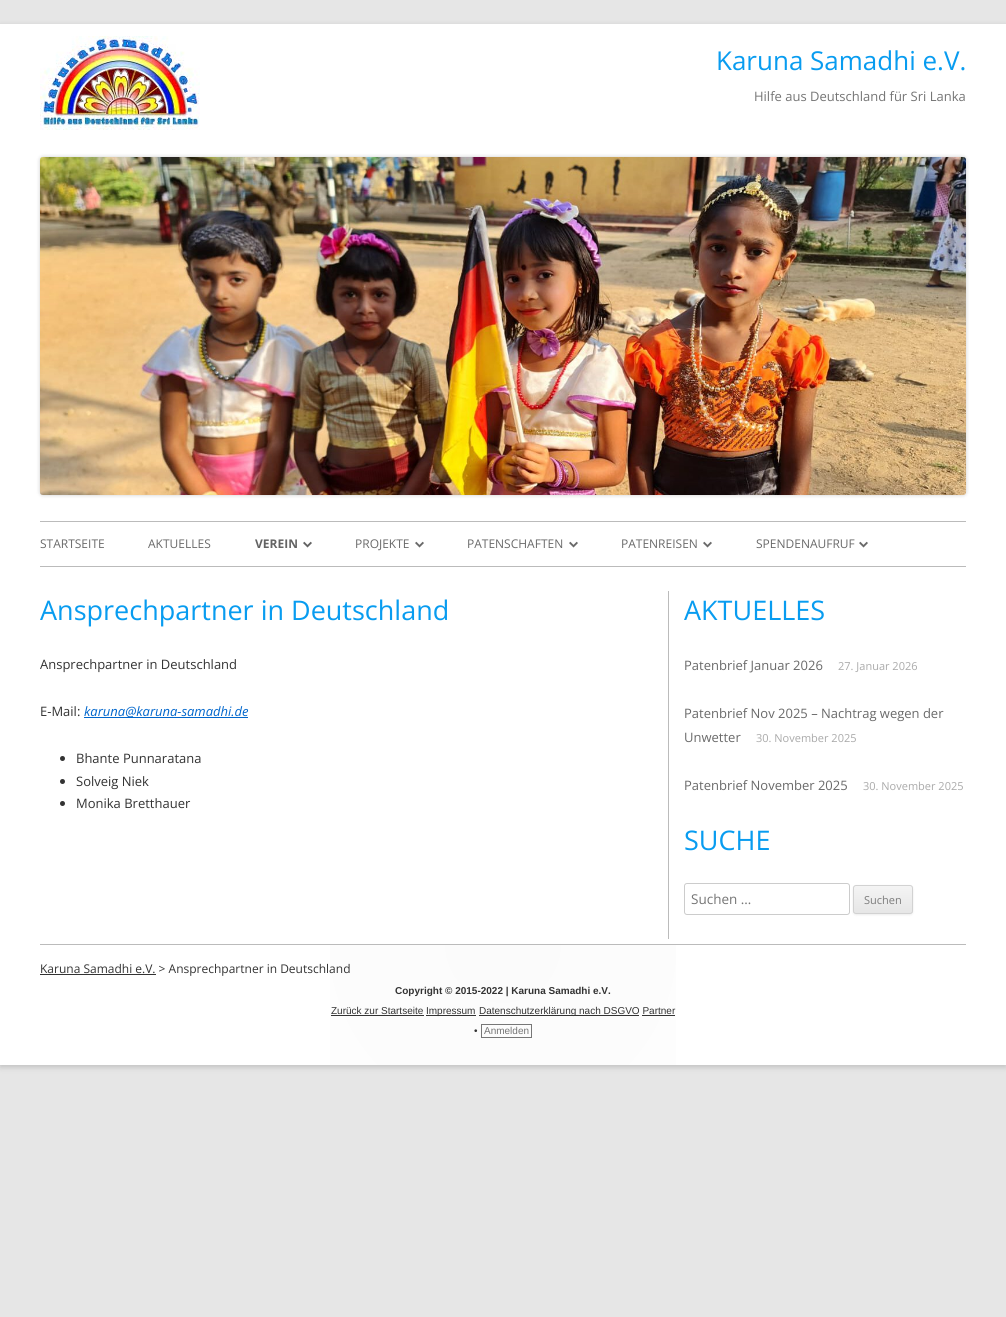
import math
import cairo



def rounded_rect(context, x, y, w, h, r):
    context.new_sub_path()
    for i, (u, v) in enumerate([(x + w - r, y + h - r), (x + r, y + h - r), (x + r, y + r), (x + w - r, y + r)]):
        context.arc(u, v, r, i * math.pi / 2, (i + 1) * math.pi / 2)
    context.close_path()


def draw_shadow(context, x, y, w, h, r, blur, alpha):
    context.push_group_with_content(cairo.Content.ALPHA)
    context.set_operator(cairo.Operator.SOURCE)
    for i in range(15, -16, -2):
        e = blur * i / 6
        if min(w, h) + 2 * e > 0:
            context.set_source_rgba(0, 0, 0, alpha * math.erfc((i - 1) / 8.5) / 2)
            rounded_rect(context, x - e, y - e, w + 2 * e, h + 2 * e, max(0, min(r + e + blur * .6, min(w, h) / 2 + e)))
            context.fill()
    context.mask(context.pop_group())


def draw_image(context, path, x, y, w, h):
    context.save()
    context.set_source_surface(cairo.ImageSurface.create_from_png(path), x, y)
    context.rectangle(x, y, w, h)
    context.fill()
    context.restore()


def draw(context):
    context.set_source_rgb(230 / 255, 230 / 255, 230 / 255)
    context.paint()
    context.set_source_rgb(100 / 255, 100 / 255, 100 / 255)
    draw_shadow(context, 0, 26, 1006, 1041, 0, 3, 0.3)
    context.set_source_rgb(1, 1, 1)
    context.rectangle(0, 24, 1006, 1041)
    context.fill()
    draw_image(context, "images/1.png", 40, 36, 160, 94)
    context.set_source_rgb(0, 0, 0)
    draw_shadow(context, 40, 157, 926, 338, 3, 2, 0.2)
    draw_image(context, "images/2.png", 40, 157, 926, 338)
    context.set_source_rgb(187 / 255, 187 / 255, 187 / 255)
    context.rectangle(40, 521, 926, 1)
    context.fill()
    context.rectangle(40, 566, 926, 1)
    context.fill()
    draw_image(context, "images/3.png", 303, 541, 9, 7)
    draw_image(context, "images/4.png", 415, 541, 9, 7)
    draw_image(context, "images/4.png", 569, 541, 9, 7)
    draw_image(context, "images/4.png", 703, 541, 9, 7)
    draw_image(context, "images/4.png", 859, 541, 9, 7)
    context.set_source_rgb(0, 102 / 255, 204 / 255)
    context.rectangle(84, 717, 164, 1)
    context.fill()
    context.set_source_rgb(51 / 255, 51 / 255, 51 / 255)
    context.arc(62.5, 758.5, 2.5, 0, 2 * math.pi)
    context.fill()
    context.arc(62.5, 781.5, 2.5, 0, 2 * math.pi)
    context.fill()
    context.arc(62.5, 803.5, 2.5, 0, 2 * math.pi)
    context.fill()
    context.set_source_rgb(187 / 255, 187 / 255, 187 / 255)
    context.rectangle(668, 591, 1, 348)
    context.fill()
    rounded_rect(context, 684.5, 883.5, 165, 31, 2.5)
    context.set_source_rgb(204 / 255, 204 / 255, 204 / 255)
    context.set_line_width(1)
    context.stroke()
    context.set_source_rgb(64 / 255, 64 / 255, 64 / 255)
    draw_shadow(context, 853, 886, 60, 29, 3, 1, 0.1)
    context.save()
    rounded_rect(context, 853, 885, 60, 29, 3)
    context.clip()
    gradient = cairo.LinearGradient(883, 886, 883, 913)
    gradient.add_color_stop_rgba(0, 244 / 255, 244 / 255, 244 / 255, 1)
    gradient.add_color_stop_rgba(1, 230 / 255, 230 / 255, 230 / 255, 1)
    context.set_source(gradient)
    context.rectangle(853, 886, 60, 27)
    context.fill()
    context.restore()
    rounded_rect(context, 853.5, 885.5, 59, 28, 2.5)
    context.set_source_rgb(210 / 255, 210 / 255, 210 / 255)
    context.stroke()
    gradient = cairo.RadialGradient(503, 945, 0, 503, 945, 463)
    gradient.add_color_stop_rgba(0, 251 / 255, 251 / 255, 251 / 255, 1)
    gradient.add_color_stop_rgba(1, 1, 1, 1, 1)
    context.set_source(gradient)
    context.rectangle(330, 945, 346, 120)
    context.fill()
    context.set_source_rgb(187 / 255, 187 / 255, 187 / 255)
    context.rectangle(40, 944, 926, 1)
    context.fill()
    context.set_source_rgb(51 / 255, 51 / 255, 51 / 255)
    context.rectangle(40, 974, 116, 1)
    context.fill()
    context.rectangle(331, 1015, 93, 1)
    context.fill()
    context.rectangle(426, 1015, 50, 1)
    context.fill()
    context.rectangle(479, 1015, 160, 1)
    context.fill()
    context.rectangle(642, 1015, 33, 1)
    context.fill()
    context.rectangle(481.5, 1024.5, 50, 13)
    context.set_source_rgb(119 / 255, 119 / 255, 119 / 255)
    context.stroke()
    context.select_font_face("Open Sans")
    context.set_font_size(26)
    context.set_source_rgb(8 / 255, 156 / 255, 240 / 255)
    context.move_to(716, 70)
    context.show_text("Karuna Samadhi e.V.")
    context.set_font_size(13)
    context.set_source_rgb(117 / 255, 117 / 255, 117 / 255)
    context.move_to(754, 101)
    context.show_text("Hilfe aus Deutschland für Sri Lanka")
    context.set_font_size(12)
    context.set_source_rgb(106 / 255, 106 / 255, 106 / 255)
    context.move_to(40, 548)
    context.show_text("STARTSEITE")
    context.move_to(148, 548)
    context.show_text("AKTUELLES")
    context.select_font_face("Open Sans", cairo.FontSlant.NORMAL, cairo.FontWeight.BOLD)
    context.set_source_rgb(99 / 255, 99 / 255, 99 / 255)
    context.move_to(255, 548)
    context.show_text("VEREIN")
    context.select_font_face("Open Sans")
    context.set_source_rgb(106 / 255, 106 / 255, 106 / 255)
    context.move_to(355, 548)
    context.show_text("PROJEKTE")
    context.move_to(467, 548)
    context.show_text("PATENSCHAFTEN")
    context.move_to(621, 548)
    context.show_text("PATENREISEN")
    context.move_to(756, 548)
    context.show_text("SPENDENAUFRUF")
    context.set_font_size(27)
    context.set_source_rgb(8 / 255, 156 / 255, 240 / 255)
    context.move_to(40, 620)
    context.show_text("Ansprechpartner in Deutschland")
    context.set_font_size(13)
    context.set_source_rgb(51 / 255, 51 / 255, 51 / 255)
    context.move_to(40, 669)
    context.show_text("Ansprechpartner in Deutschland")
    context.move_to(40, 716)
    context.show_text("E-Mail:")
    context.select_font_face("Open Sans", cairo.FontSlant.ITALIC)
    context.set_source_rgb(0, 102 / 255, 204 / 255)
    context.move_to(84, 716)
    context.show_text("karuna@karuna-samadhi.de")
    context.select_font_face("Open Sans")
    context.set_source_rgb(51 / 255, 51 / 255, 51 / 255)
    context.move_to(76, 763)
    context.show_text("Bhante Punnaratana")
    context.move_to(76, 786)
    context.show_text("Solveig Niek")
    context.move_to(76, 808)
    context.show_text("Monika Bretthauer")
    context.set_font_size(27)
    context.set_source_rgb(8 / 255, 156 / 255, 240 / 255)
    context.move_to(684, 620)
    context.show_text("AKTUELLES")
    context.set_font_size(13)
    context.set_source_rgb(106 / 255, 106 / 255, 106 / 255)
    context.move_to(684, 670)
    context.show_text("Patenbrief Januar 2026")
    context.set_font_size(11)
    context.set_source_rgb(170 / 255, 170 / 255, 170 / 255)
    context.move_to(838, 670)
    context.show_text("27. Januar 2026")
    context.set_font_size(13)
    context.set_source_rgb(106 / 255, 106 / 255, 106 / 255)
    context.move_to(684, 718)
    context.show_text("Patenbrief Nov 2025 – Nachtrag wegen der")
    context.move_to(684, 742)
    context.show_text("Unwetter")
    context.set_font_size(11)
    context.set_source_rgb(170 / 255, 170 / 255, 170 / 255)
    context.move_to(756, 742)
    context.show_text("30. November 2025")
    context.set_font_size(13)
    context.set_source_rgb(106 / 255, 106 / 255, 106 / 255)
    context.move_to(684, 790)
    context.show_text("Patenbrief November 2025")
    context.set_font_size(11)
    context.set_source_rgb(170 / 255, 170 / 255, 170 / 255)
    context.move_to(863, 790)
    context.show_text("30. November 2025")
    context.set_font_size(27)
    context.set_source_rgb(8 / 255, 156 / 255, 240 / 255)
    context.move_to(684, 850)
    context.show_text("SUCHE")
    context.set_font_size(13.5)
    context.set_source_rgb(117 / 255, 117 / 255, 117 / 255)
    context.move_to(691, 904)
    context.show_text("Suchen …")
    context.set_font_size(11)
    context.set_source_rgb(124 / 255, 124 / 255, 124 / 255)
    context.move_to(864, 904)
    context.show_text("Suchen")
    context.set_font_size(12)
    context.set_source_rgb(51 / 255, 51 / 255, 51 / 255)
    context.move_to(40, 973)
    context.show_text("Karuna Samadhi e.V. > Ansprechpartner in Deutschland")
    context.select_font_face("Liberation Sans", cairo.FontSlant.NORMAL, cairo.FontWeight.BOLD)
    context.set_font_size(10)
    context.move_to(395, 994)
    context.show_text("Copyright © 2015-2022 | Karuna Samadhi e.V.")
    context.select_font_face("Liberation Sans")
    context.move_to(331, 1014)
    context.show_text("Zurück zur Startseite")
    context.move_to(426, 1014)
    context.show_text("Impressum")
    context.move_to(479, 1014)
    context.show_text("Datenschutzerklärung nach DSGVO Partner")
    context.move_to(474, 1034)
    context.show_text("•")
    context.set_source_rgb(117 / 255, 117 / 255, 117 / 255)
    context.move_to(484, 1034)
    context.show_text("Anmelden")


surface = cairo.ImageSurface(cairo.Format.RGB24, 1006, 1317)
context = cairo.Context(surface)
options = cairo.FontOptions()
options.set_hint_metrics(cairo.HintMetrics.OFF)
options.set_hint_style(cairo.HintStyle.NONE)
context.set_font_options(options)
context.set_miter_limit(4)
draw(context)
surface.write_to_png("out.png")
